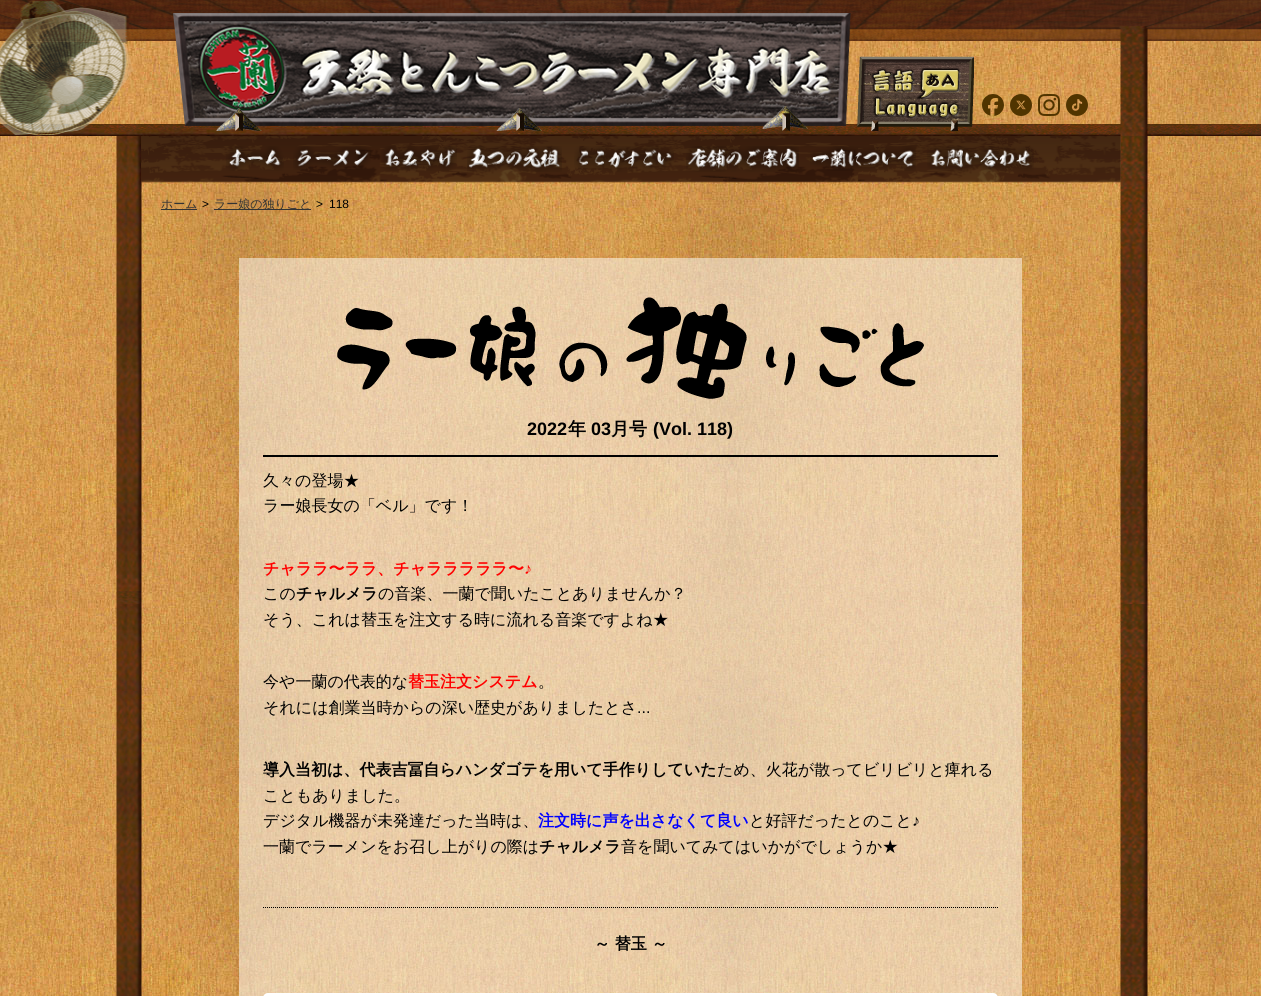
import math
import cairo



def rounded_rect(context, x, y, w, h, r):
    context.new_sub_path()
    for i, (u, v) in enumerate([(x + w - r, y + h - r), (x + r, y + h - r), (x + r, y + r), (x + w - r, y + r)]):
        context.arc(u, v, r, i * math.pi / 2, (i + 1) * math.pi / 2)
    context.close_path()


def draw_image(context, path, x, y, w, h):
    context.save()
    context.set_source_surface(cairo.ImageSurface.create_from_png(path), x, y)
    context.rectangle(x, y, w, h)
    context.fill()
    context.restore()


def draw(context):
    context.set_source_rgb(1, 1, 1)
    context.paint()
    draw_image(context, "images/1.png", 0, 28, 1261, 968)
    draw_image(context, "images/2.png", 0, 0, 1261, 136)
    draw_image(context, "images/3.png", 173, 13, 678, 118)
    draw_image(context, "images/4.png", 857, 56, 117, 75)
    draw_image(context, "images/5.png", 982, 94, 22, 22)
    draw_image(context, "images/6.png", 1010, 94, 22, 22)
    draw_image(context, "images/7.png", 1038, 94, 22, 22)
    draw_image(context, "images/8.png", 1066, 94, 22, 22)
    draw_image(context, "images/9.png", 116, 136, 1032, 860)
    draw_image(context, "images/10.png", 141, 136, 980, 47)
    draw_image(context, "images/11.png", 226, 146, 58, 25)
    draw_image(context, "images/12.png", 293, 146, 78, 24)
    draw_image(context, "images/13.png", 381, 146, 76, 25)
    draw_image(context, "images/14.png", 467, 146, 95, 26)
    draw_image(context, "images/15.png", 574, 146, 100, 26)
    draw_image(context, "images/16.png", 686, 146, 113, 26)
    draw_image(context, "images/17.png", 810, 146, 106, 25)
    draw_image(context, "images/18.png", 927, 146, 107, 26)
    context.set_source_rgb(51 / 255, 51 / 255, 51 / 255)
    context.rectangle(161, 209, 36, 1)
    context.fill()
    context.rectangle(214, 209, 97, 1)
    context.fill()
    context.set_source_rgba(1, 1, 1, 0.5)
    context.rectangle(239, 258, 783, 738)
    context.fill()
    context.set_source_rgb(0, 0, 0)
    context.rectangle(263, 455, 735, 2)
    context.fill()
    draw_image(context, "images/19.png", 337, 297, 587, 102)
    context.new_path()
    context.move_to(263, 907.5)
    context.line_to(998, 907.5)
    context.set_line_width(1)
    context.set_dash([1, 1])
    context.stroke()
    context.set_source_rgb(1, 1, 1)
    rounded_rect(context, 263, 993, 735, 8, 5)
    context.fill()
    context.select_font_face("WenQuanYi Zen Hei Medium")
    context.set_font_size(12)
    context.set_source_rgb(51 / 255, 51 / 255, 51 / 255)
    context.move_to(161, 208)
    context.show_text("ホーム")
    context.select_font_face("Liberation Sans")
    context.set_source_rgb(0, 0, 0)
    context.move_to(202, 208)
    context.show_text(">")
    context.select_font_face("WenQuanYi Zen Hei Medium")
    context.set_source_rgb(51 / 255, 51 / 255, 51 / 255)
    context.move_to(214, 208)
    context.show_text("ラー娘の独りごと")
    context.select_font_face("Liberation Sans")
    context.set_source_rgb(0, 0, 0)
    context.move_to(316, 208)
    context.show_text(">")
    context.move_to(329, 208)
    context.show_text("118")
    context.select_font_face("Liberation Sans", cairo.FontSlant.NORMAL, cairo.FontWeight.BOLD)
    context.set_font_size(18)
    context.move_to(527, 435)
    context.show_text("2022")
    context.select_font_face("WenQuanYi Zen Hei", cairo.FontSlant.NORMAL, cairo.FontWeight.BOLD)
    context.move_to(568, 435)
    context.show_text("年")
    context.select_font_face("Liberation Sans", cairo.FontSlant.NORMAL, cairo.FontWeight.BOLD)
    context.move_to(591, 435)
    context.show_text("03")
    context.select_font_face("WenQuanYi Zen Hei", cairo.FontSlant.NORMAL, cairo.FontWeight.BOLD)
    context.move_to(611, 435)
    context.show_text("月号")
    context.select_font_face("Liberation Sans", cairo.FontSlant.NORMAL, cairo.FontWeight.BOLD)
    context.move_to(653, 435)
    context.show_text("(Vol. 118)")
    context.select_font_face("WenQuanYi Zen Hei Medium")
    context.set_font_size(16)
    context.move_to(263, 486)
    context.show_text("久々の登場★")
    context.move_to(263, 511)
    context.show_text("ラー娘長女の「ベル」です！")
    context.select_font_face("WenQuanYi Zen Hei", cairo.FontSlant.NORMAL, cairo.FontWeight.BOLD)
    context.set_source_rgb(1, 0, 0)
    context.move_to(263, 574)
    context.show_text("チャララ〜ララ、チャラララララ〜")
    context.select_font_face("Liberation Sans", cairo.FontSlant.NORMAL, cairo.FontWeight.BOLD)
    context.move_to(524, 574)
    context.show_text("♪")
    context.select_font_face("WenQuanYi Zen Hei Medium")
    context.set_source_rgb(0, 0, 0)
    context.move_to(263, 599)
    context.show_text("この")
    context.select_font_face("WenQuanYi Zen Hei", cairo.FontSlant.NORMAL, cairo.FontWeight.BOLD)
    context.move_to(296, 599)
    context.show_text("チャルメラ")
    context.select_font_face("WenQuanYi Zen Hei Medium")
    context.move_to(378, 599)
    context.show_text("の音楽、一蘭で聞いたことありませんか？")
    context.move_to(263, 625)
    context.show_text("そう、これは替玉を注文する時に流れる音楽ですよね★")
    context.move_to(263, 687)
    context.show_text("今や一蘭の代表的な")
    context.select_font_face("WenQuanYi Zen Hei", cairo.FontSlant.NORMAL, cairo.FontWeight.BOLD)
    context.set_source_rgb(1, 0, 0)
    context.move_to(408, 687)
    context.show_text("替玉注文システム")
    context.select_font_face("WenQuanYi Zen Hei Medium")
    context.set_source_rgb(0, 0, 0)
    context.move_to(538, 687)
    context.show_text("。")
    context.move_to(263, 713)
    context.show_text("それには創業当時からの深い歴史がありましたとさ")
    context.select_font_face("Liberation Sans")
    context.move_to(637, 713)
    context.show_text("...")
    context.select_font_face("WenQuanYi Zen Hei", cairo.FontSlant.NORMAL, cairo.FontWeight.BOLD)
    context.move_to(263, 775)
    context.show_text("導入当初は、代表吉冨自らハンダゴテを用いて手作りしていた")
    context.select_font_face("WenQuanYi Zen Hei Medium")
    context.move_to(717, 775)
    context.show_text("ため、火花が散ってビリビリと痺れる")
    context.move_to(263, 801)
    context.show_text("こともありました。")
    context.move_to(263, 826)
    context.show_text("デジタル機器が未発達だった当時は、")
    context.select_font_face("WenQuanYi Zen Hei", cairo.FontSlant.NORMAL, cairo.FontWeight.BOLD)
    context.set_source_rgb(0, 0, 1)
    context.move_to(538, 826)
    context.show_text("注文時に声を出さなくて良い")
    context.select_font_face("WenQuanYi Zen Hei Medium")
    context.set_source_rgb(0, 0, 0)
    context.move_to(749, 826)
    context.show_text("と好評だったとのこと")
    context.select_font_face("Liberation Sans")
    context.move_to(912, 826)
    context.show_text("♪")
    context.select_font_face("WenQuanYi Zen Hei Medium")
    context.move_to(263, 852)
    context.show_text("一蘭でラーメンをお召し上がりの際は")
    context.select_font_face("WenQuanYi Zen Hei", cairo.FontSlant.NORMAL, cairo.FontWeight.BOLD)
    context.move_to(539, 852)
    context.show_text("チャルメラ")
    context.select_font_face("WenQuanYi Zen Hei Medium")
    context.move_to(621, 852)
    context.show_text("音を聞いてみてはいかがでしょうか★")
    context.select_font_face("WenQuanYi Zen Hei", cairo.FontSlant.NORMAL, cairo.FontWeight.BOLD)
    context.move_to(594, 949)
    context.show_text("～ 替玉 ～")


surface = cairo.ImageSurface(cairo.Format.RGB24, 1261, 996)
context = cairo.Context(surface)
options = cairo.FontOptions()
options.set_hint_metrics(cairo.HintMetrics.OFF)
options.set_hint_style(cairo.HintStyle.NONE)
context.set_font_options(options)
context.set_miter_limit(4)
draw(context)
surface.write_to_png("out.png")
